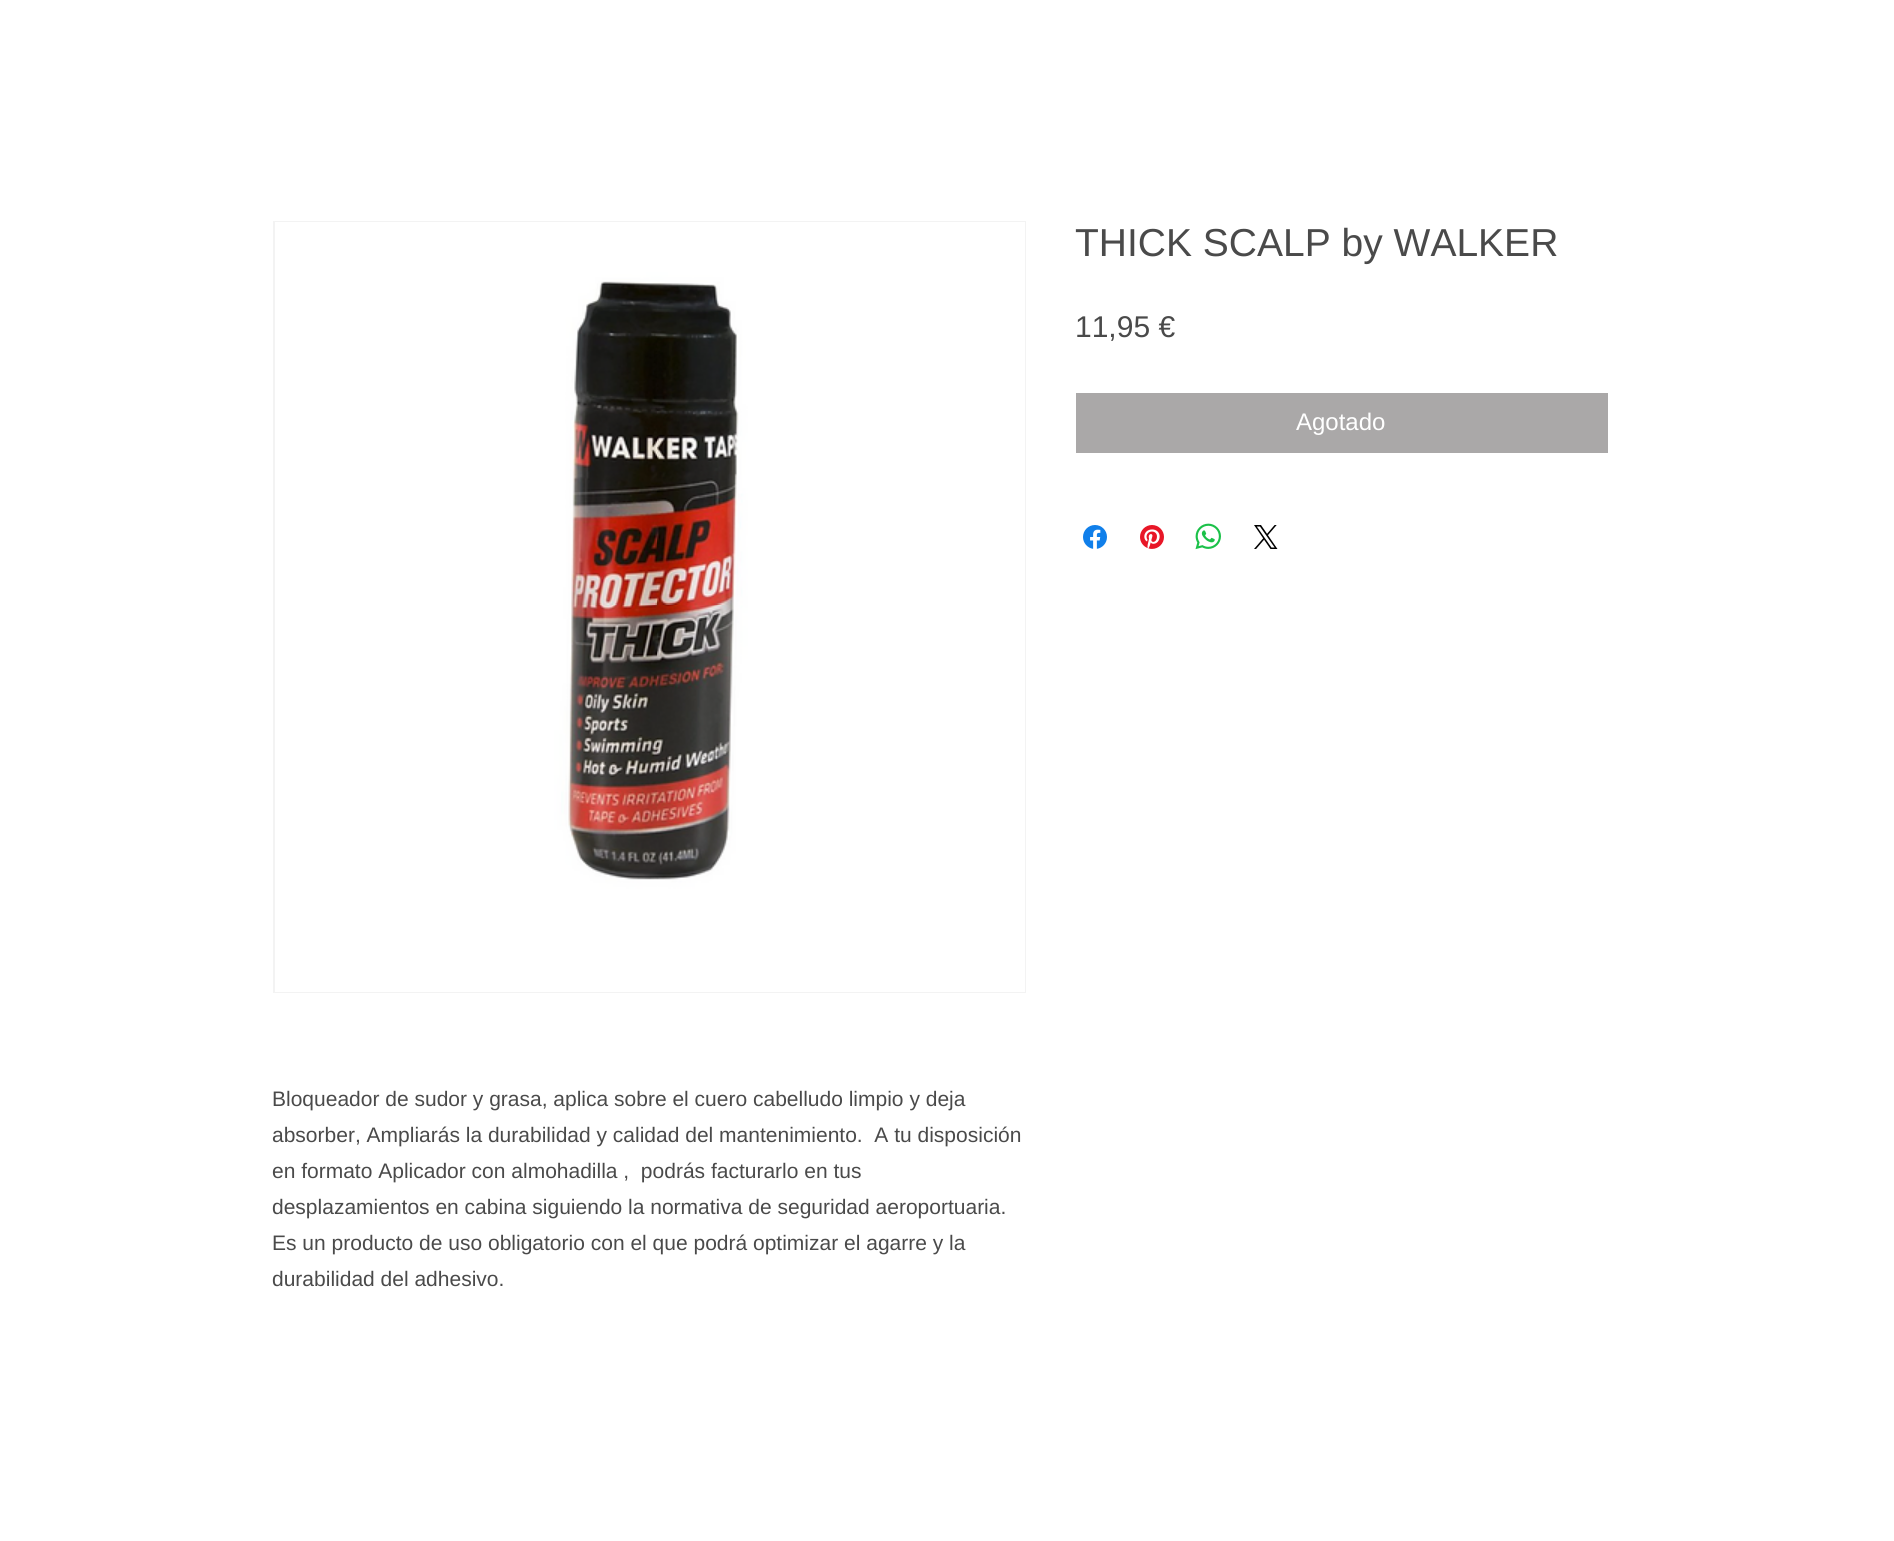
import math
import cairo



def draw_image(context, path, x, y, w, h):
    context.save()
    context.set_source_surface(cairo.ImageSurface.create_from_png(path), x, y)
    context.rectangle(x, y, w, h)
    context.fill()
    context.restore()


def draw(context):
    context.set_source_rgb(1, 1, 1)
    context.paint()
    context.set_source_rgb(170 / 255, 168 / 255, 168 / 255)
    context.rectangle(1076, 393, 532, 60)
    context.fill()
    draw_image(context, "images/1.png", 1083, 525, 24, 24)
    draw_image(context, "images/2.png", 1140, 525, 24, 24)
    draw_image(context, "images/3.png", 1195, 523, 26, 27)
    draw_image(context, "images/4.png", 1254, 525, 24, 24)
    context.rectangle(274, 222, 751, 770)
    context.set_source_rgb(243 / 255, 243 / 255, 243 / 255)
    context.stroke()
    draw_image(context, "images/5.png", 275, 222, 750, 770)
    context.select_font_face("Liberation Sans")
    context.set_font_size(39)
    context.set_source_rgb(74 / 255, 74 / 255, 74 / 255)
    context.move_to(1075, 256)
    context.show_text("THICK SCALP by WALKER")
    context.set_font_size(30)
    context.move_to(1075, 337)
    context.show_text("11,95 €")
    context.set_font_size(24)
    context.set_source_rgb(1, 1, 1)
    context.move_to(1296, 430)
    context.show_text("Agotado")
    context.set_font_size(21)
    context.set_source_rgb(74 / 255, 74 / 255, 74 / 255)
    context.move_to(272, 1106)
    context.show_text("Bloqueador de sudor y grasa, aplica sobre el cuero cabelludo limpio y deja")
    context.move_to(272, 1142)
    context.show_text("absorber, Ampliarás la durabilidad y calidad del mantenimiento.  A tu disposición")
    context.move_to(272, 1178)
    context.show_text("en formato Aplicador con almohadilla ,  podrás facturarlo en tus")
    context.move_to(272, 1214)
    context.show_text("desplazamientos en cabina siguiendo la normativa de seguridad aeroportuaria.")
    context.move_to(272, 1250)
    context.show_text("Es un producto de uso obligatorio con el que podrá optimizar el agarre y la")
    context.move_to(272, 1286)
    context.show_text("durabilidad del adhesivo.")


surface = cairo.ImageSurface(cairo.Format.RGB24, 1894, 1541)
context = cairo.Context(surface)
options = cairo.FontOptions()
options.set_hint_metrics(cairo.HintMetrics.OFF)
options.set_hint_style(cairo.HintStyle.NONE)
context.set_font_options(options)
context.set_miter_limit(4)
draw(context)
surface.write_to_png("out.png")
